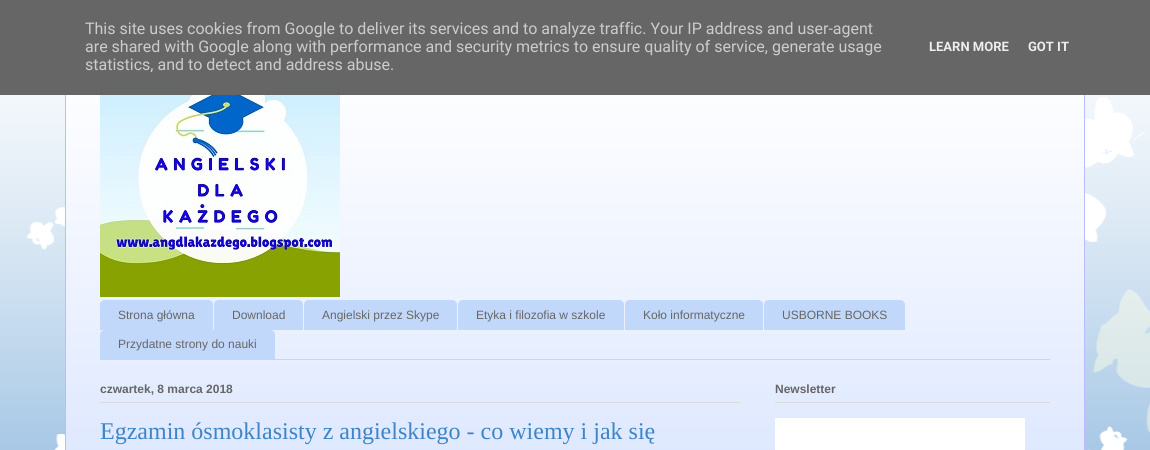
import math
import cairo



def draw_image(context, path, x, y, w, h):
    context.save()
    context.set_source_surface(cairo.ImageSurface.create_from_png(path), x, y)
    context.rectangle(x, y, w, h)
    context.fill()
    context.restore()


def draw(context):
    context.set_source_rgb(61 / 255, 133 / 255, 198 / 255)
    context.paint()
    context.set_source_rgb(102 / 255, 102 / 255, 102 / 255)
    context.rectangle(0, 0, 1150, 95)
    context.fill()
    draw_image(context, "images/1.png", 0, 95, 1150, 355)
    context.set_source_rgb(212 / 255, 225 / 255, 1)
    context.rectangle(66, 95, 1018, 355)
    context.fill()
    draw_image(context, "images/2.png", 66, 95, 1018, 355)
    context.set_source_rgb(187 / 255, 187 / 255, 1)
    context.rectangle(1084, 95, 1, 355)
    context.fill()
    context.rectangle(65, 95, 1, 355)
    context.fill()
    draw_image(context, "images/3.png", 100, 95, 240, 202)
    context.set_source_rgb(194 / 255, 216 / 255, 250 / 255)
    context.rectangle(100, 359, 950, 1)
    context.fill()
    context.new_path()
    context.move_to(105, 300)
    context.line_to(208, 300)
    context.curve_to(211, 300, 213, 302, 213, 305)
    context.line_to(213, 330)
    context.line_to(100, 330)
    context.line_to(100, 305)
    context.curve_to(100, 302, 102, 300, 105, 300)
    context.close_path()
    context.fill()
    context.new_path()
    context.move_to(219, 300)
    context.line_to(298, 300)
    context.curve_to(301, 300, 303, 302, 303, 305)
    context.line_to(303, 330)
    context.line_to(214, 330)
    context.line_to(214, 305)
    context.curve_to(214, 302, 216, 300, 219, 300)
    context.close_path()
    context.fill()
    context.new_path()
    context.move_to(309, 300)
    context.line_to(452, 300)
    context.curve_to(455, 300, 457, 302, 457, 305)
    context.line_to(457, 330)
    context.line_to(304, 330)
    context.line_to(304, 305)
    context.curve_to(304, 302, 306, 300, 309, 300)
    context.close_path()
    context.fill()
    context.new_path()
    context.move_to(463, 300)
    context.line_to(619, 300)
    context.curve_to(622, 300, 624, 302, 624, 305)
    context.line_to(624, 330)
    context.line_to(458, 330)
    context.line_to(458, 305)
    context.curve_to(458, 302, 460, 300, 463, 300)
    context.close_path()
    context.fill()
    context.new_path()
    context.move_to(630, 300)
    context.line_to(758, 300)
    context.curve_to(761, 300, 763, 302, 763, 305)
    context.line_to(763, 330)
    context.line_to(625, 330)
    context.line_to(625, 305)
    context.curve_to(625, 302, 627, 300, 630, 300)
    context.close_path()
    context.fill()
    context.new_path()
    context.move_to(769, 300)
    context.line_to(900, 300)
    context.curve_to(903, 300, 905, 302, 905, 305)
    context.line_to(905, 330)
    context.line_to(764, 330)
    context.line_to(764, 305)
    context.curve_to(764, 302, 766, 300, 769, 300)
    context.close_path()
    context.fill()
    context.new_path()
    context.move_to(105, 330)
    context.line_to(270, 330)
    context.curve_to(273, 330, 275, 332, 275, 335)
    context.line_to(275, 359)
    context.line_to(100, 359)
    context.line_to(100, 335)
    context.curve_to(100, 332, 102, 330, 105, 330)
    context.close_path()
    context.fill()
    context.set_source_rgb(219 / 255, 219 / 255, 219 / 255)
    context.rectangle(100, 402, 640, 1)
    context.fill()
    context.rectangle(775, 402, 275, 1)
    context.fill()
    context.set_source_rgb(1, 1, 1)
    context.rectangle(775, 418, 250, 32)
    context.fill()
    context.select_font_face("Roboto")
    context.set_font_size(16)
    context.set_source_rgb(204 / 255, 204 / 255, 204 / 255)
    context.move_to(85, 34)
    context.show_text("This site uses cookies from Google to deliver its services and to analyze traffic. Your IP address and user-agent")
    context.move_to(85, 52)
    context.show_text("are shared with Google along with performance and security metrics to ensure quality of service, generate usage")
    context.move_to(85, 70)
    context.show_text("statistics, and to detect and address abuse.")
    context.select_font_face("Roboto", cairo.FontSlant.NORMAL, cairo.FontWeight.BOLD)
    context.set_font_size(13)
    context.set_source_rgb(238 / 255, 238 / 255, 238 / 255)
    context.move_to(929, 51)
    context.show_text("LEARN MORE")
    context.move_to(1028, 51)
    context.show_text("GOT IT")
    context.select_font_face("Liberation Sans")
    context.set_font_size(12)
    context.set_source_rgb(102 / 255, 102 / 255, 102 / 255)
    context.move_to(118, 319)
    context.show_text("Strona główna")
    context.move_to(232, 319)
    context.show_text("Download")
    context.move_to(322, 319)
    context.show_text("Angielski przez Skype")
    context.move_to(476, 319)
    context.show_text("Etyka i filozofia w szkole")
    context.move_to(643, 319)
    context.show_text("Koło informatyczne")
    context.move_to(782, 319)
    context.show_text("USBORNE BOOKS")
    context.move_to(118, 348)
    context.show_text("Przydatne strony do nauki")
    context.select_font_face("Liberation Sans", cairo.FontSlant.NORMAL, cairo.FontWeight.BOLD)
    context.move_to(100, 393)
    context.show_text("czwartek, 8 marca 2018")
    context.select_font_face("Liberation Serif")
    context.set_font_size(24)
    context.set_source_rgb(61 / 255, 133 / 255, 198 / 255)
    context.move_to(100, 439)
    context.show_text("Egzamin ósmoklasisty z angielskiego - co wiemy i jak się")
    context.select_font_face("Liberation Sans", cairo.FontSlant.NORMAL, cairo.FontWeight.BOLD)
    context.set_font_size(12)
    context.set_source_rgb(102 / 255, 102 / 255, 102 / 255)
    context.move_to(775, 393)
    context.show_text("Newsletter")


surface = cairo.ImageSurface(cairo.Format.RGB24, 1150, 450)
context = cairo.Context(surface)
options = cairo.FontOptions()
options.set_hint_metrics(cairo.HintMetrics.OFF)
options.set_hint_style(cairo.HintStyle.NONE)
context.set_font_options(options)
context.set_miter_limit(4)
draw(context)
surface.write_to_png("out.png")
